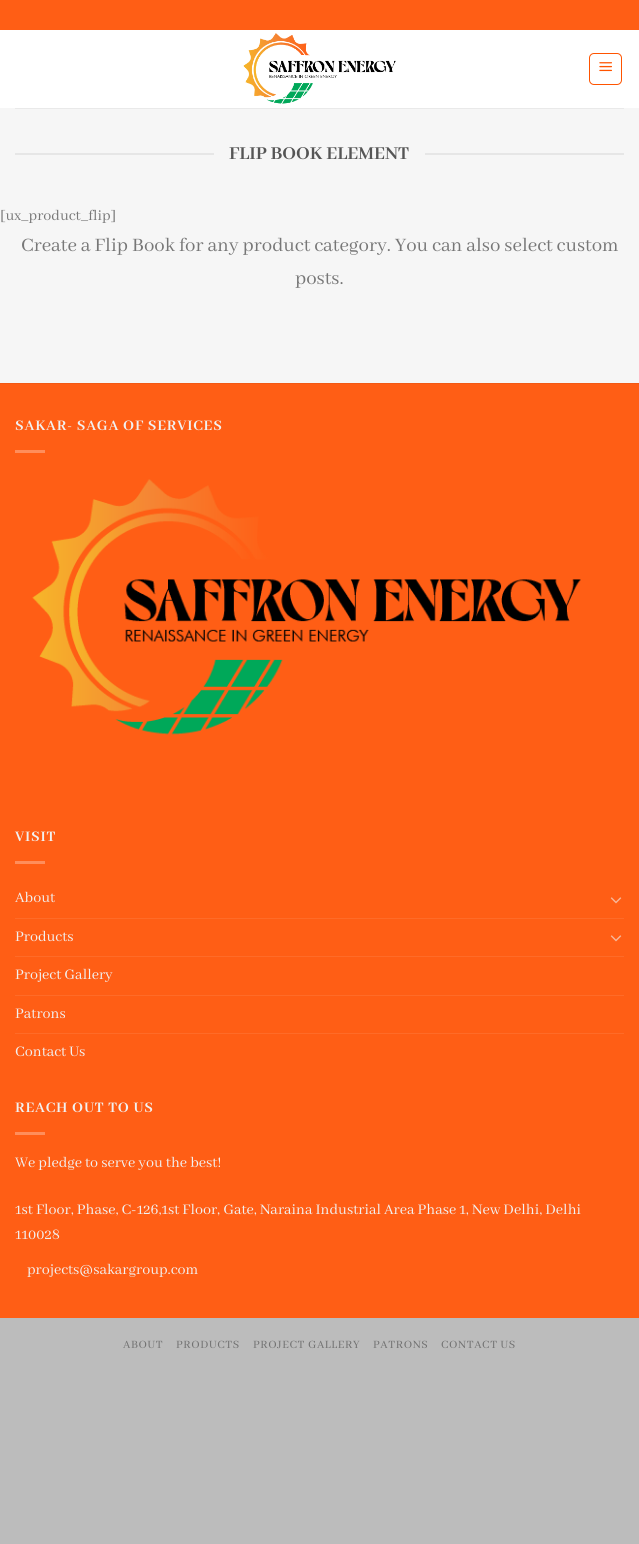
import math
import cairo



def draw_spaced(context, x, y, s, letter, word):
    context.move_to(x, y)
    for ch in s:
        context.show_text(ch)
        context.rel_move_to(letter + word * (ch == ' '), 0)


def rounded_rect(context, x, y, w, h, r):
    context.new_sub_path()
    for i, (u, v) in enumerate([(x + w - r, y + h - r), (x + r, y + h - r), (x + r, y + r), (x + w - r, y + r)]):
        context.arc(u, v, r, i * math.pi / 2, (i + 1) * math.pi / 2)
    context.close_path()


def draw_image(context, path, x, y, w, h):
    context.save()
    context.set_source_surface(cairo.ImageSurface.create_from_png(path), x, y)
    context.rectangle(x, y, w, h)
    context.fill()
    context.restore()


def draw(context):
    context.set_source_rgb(188 / 255, 188 / 255, 188 / 255)
    context.paint()
    context.set_source_rgb(1, 1, 1)
    context.rectangle(0, 30, 639, 78)
    context.fill()
    context.set_source_rgb(1, 94 / 255, 21 / 255)
    context.rectangle(0, 0, 639, 30)
    context.fill()
    draw_image(context, "images/1.png", 243, 33, 153, 71)
    rounded_rect(context, 589.5, 53.5, 32, 31, 4.5)
    context.set_source_rgb(1, 84 / 255, 0)
    context.set_line_width(1)
    context.stroke()
    draw_image(context, "images/2.png", 599, 62, 13, 10)
    context.set_source_rgb(246 / 255, 246 / 255, 246 / 255)
    context.rectangle(0, 108, 639, 275)
    context.fill()
    context.set_source_rgb(233 / 255, 233 / 255, 233 / 255)
    context.rectangle(15, 108, 609, 1)
    context.fill()
    context.set_source_rgb(230 / 255, 230 / 255, 230 / 255)
    context.rectangle(15, 153, 199, 2)
    context.fill()
    context.rectangle(425, 153, 199, 2)
    context.fill()
    context.set_source_rgb(1, 94 / 255, 21 / 255)
    context.rectangle(0, 384, 639, 934)
    context.fill()
    context.set_source_rgb(242 / 255, 89 / 255, 20 / 255)
    context.rectangle(0, 383, 639, 1)
    context.fill()
    context.set_source_rgb(1, 142 / 255, 91 / 255)
    context.rectangle(15, 450, 30, 3)
    context.fill()
    draw_image(context, "images/3.png", 32, 479, 549, 256)
    context.rectangle(15, 861, 30, 3)
    context.fill()
    draw_image(context, "images/4.png", 610, 897, 12, 7)
    context.set_source_rgb(1, 107 / 255, 40 / 255)
    context.rectangle(15, 918, 609, 1)
    context.fill()
    draw_image(context, "images/4.png", 610, 935, 12, 7)
    context.rectangle(15, 956, 609, 1)
    context.fill()
    context.rectangle(15, 995, 609, 1)
    context.fill()
    context.rectangle(15, 1033, 609, 1)
    context.fill()
    context.set_source_rgb(1, 142 / 255, 91 / 255)
    context.rectangle(15, 1132, 30, 3)
    context.fill()
    context.select_font_face("Abhaya Libre", cairo.FontSlant.NORMAL, cairo.FontWeight.BOLD)
    context.set_font_size(20)
    context.set_source_rgb(85 / 255, 85 / 255, 85 / 255)
    context.move_to(229, 159)
    context.show_text("FLIP BOOK ELEMENT")
    context.select_font_face("Abhaya Libre")
    context.set_font_size(16)
    context.set_source_rgb(119 / 255, 119 / 255, 119 / 255)
    context.move_to(0, 220)
    context.show_text("[ux_product_flip]")
    context.set_font_size(20.8)
    context.move_to(21, 251)
    context.show_text("Create a Flip Book for any product category. You can also select custom")
    context.move_to(295, 284)
    context.show_text("posts.")
    context.select_font_face("Abhaya Libre", cairo.FontSlant.NORMAL, cairo.FontWeight.BOLD)
    context.set_font_size(16)
    context.set_source_rgb(241 / 255, 241 / 255, 241 / 255)
    draw_spaced(context, 15, 430, "SAKAR- SAGA OF SERVICES", 0.8, 0)
    draw_spaced(context, 15, 841, "VISIT", 0.8, 0)
    context.select_font_face("Abhaya Libre")
    context.move_to(15, 902)
    context.show_text("About")
    context.move_to(15, 941)
    context.show_text("Products")
    context.move_to(15, 979)
    context.show_text("Project Gallery")
    context.move_to(15, 1018)
    context.show_text("Patrons")
    context.move_to(15, 1056)
    context.show_text("Contact Us")
    context.select_font_face("Abhaya Libre", cairo.FontSlant.NORMAL, cairo.FontWeight.BOLD)
    draw_spaced(context, 15, 1112, "REACH OUT TO US", 0.8, 0)
    context.select_font_face("Abhaya Libre")
    context.move_to(15, 1167)
    context.show_text("We pledge to serve you the best!")
    context.move_to(15, 1214)
    context.show_text("1st Floor, Phase, C-126,1st Floor, Gate, Naraina Industrial Area Phase 1, New Delhi, Delhi")
    context.move_to(15, 1239)
    context.show_text("110028")
    context.move_to(27, 1274)
    context.show_text("projects@sakargroup.com")
    context.set_font_size(12.25)
    context.set_source_rgb(113 / 255, 113 / 255, 113 / 255)
    draw_spaced(context, 123, 1348, "ABOUT", 0.6, 0)
    draw_spaced(context, 176, 1348, "PRODUCTS", 0.6, 0)
    draw_spaced(context, 253, 1348, "PROJECT GALLERY", 0.6, 0)
    draw_spaced(context, 373, 1348, "PATRONS", 0.6, 0)
    draw_spaced(context, 441, 1348, "CONTACT US", 0.6, 0)


surface = cairo.ImageSurface(cairo.Format.RGB24, 639, 1544)
context = cairo.Context(surface)
options = cairo.FontOptions()
options.set_hint_metrics(cairo.HintMetrics.OFF)
options.set_hint_style(cairo.HintStyle.NONE)
context.set_font_options(options)
context.set_miter_limit(4)
draw(context)
surface.write_to_png("out.png")
